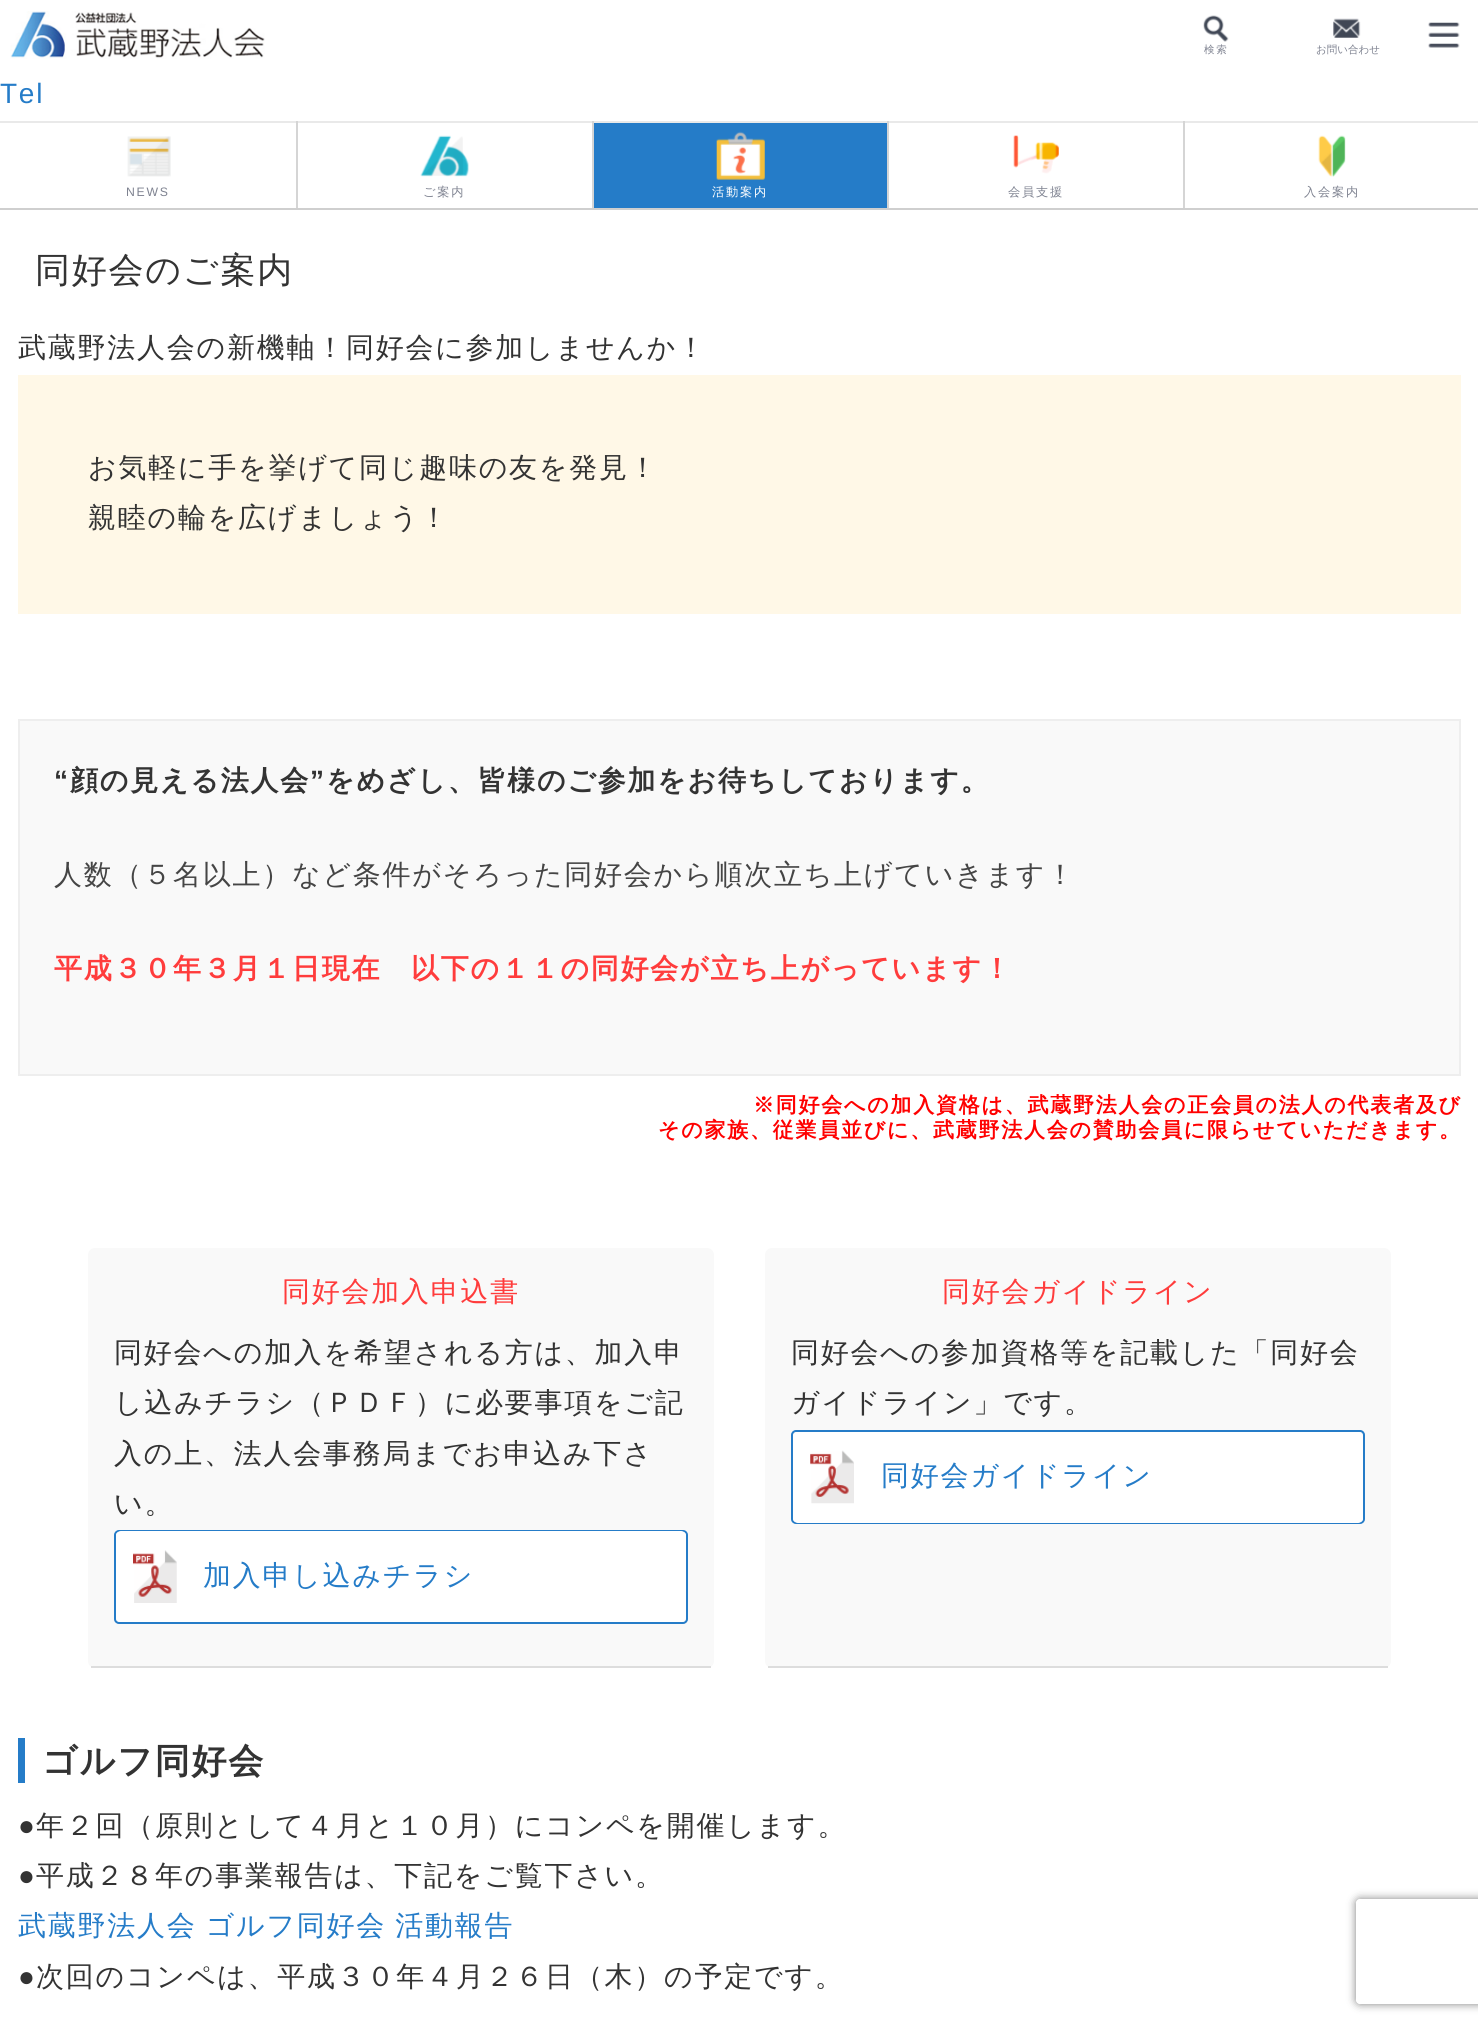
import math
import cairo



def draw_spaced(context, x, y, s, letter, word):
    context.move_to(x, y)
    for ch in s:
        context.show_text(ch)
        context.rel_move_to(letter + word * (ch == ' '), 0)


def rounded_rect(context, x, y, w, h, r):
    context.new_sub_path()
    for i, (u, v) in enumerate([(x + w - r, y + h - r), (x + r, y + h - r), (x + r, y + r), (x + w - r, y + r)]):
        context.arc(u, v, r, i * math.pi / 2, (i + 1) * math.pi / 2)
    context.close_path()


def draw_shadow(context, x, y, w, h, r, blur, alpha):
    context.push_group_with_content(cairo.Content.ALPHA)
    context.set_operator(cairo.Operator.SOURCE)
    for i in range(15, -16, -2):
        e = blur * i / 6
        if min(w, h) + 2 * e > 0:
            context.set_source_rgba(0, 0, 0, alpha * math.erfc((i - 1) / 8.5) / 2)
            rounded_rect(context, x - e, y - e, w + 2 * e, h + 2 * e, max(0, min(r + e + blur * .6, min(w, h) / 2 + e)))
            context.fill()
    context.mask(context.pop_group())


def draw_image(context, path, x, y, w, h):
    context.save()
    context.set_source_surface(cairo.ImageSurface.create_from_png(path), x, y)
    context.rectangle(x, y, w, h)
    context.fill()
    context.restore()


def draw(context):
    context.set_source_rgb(1, 1, 1)
    context.paint()
    draw_image(context, "images/1.png", 10, 11, 255, 48)
    draw_image(context, "images/2.png", 1428, 22, 32, 26)
    draw_image(context, "images/3.png", 1203, 15, 26, 27)
    draw_image(context, "images/4.png", 1333, 18, 28, 20)
    context.set_source_rgb(207 / 255, 207 / 255, 207 / 255)
    context.rectangle(0, 208, 1478, 2)
    context.fill()
    context.set_source_rgb(233 / 255, 233 / 255, 233 / 255)
    context.rectangle(0, 121, 1478, 2)
    context.fill()
    draw_image(context, "images/5.png", 127, 136, 44, 41)
    context.set_source_rgb(213 / 255, 213 / 255, 213 / 255)
    context.rectangle(296, 121, 2, 87)
    context.fill()
    draw_image(context, "images/6.png", 420, 135, 49, 42)
    context.set_source_rgb(37 / 255, 124 / 255, 200 / 255)
    context.rectangle(594, 123, 293, 85)
    context.fill()
    context.set_source_rgb(213 / 255, 213 / 255, 213 / 255)
    context.rectangle(592, 121, 2, 87)
    context.fill()
    draw_image(context, "images/7.png", 716, 131, 49, 49)
    context.rectangle(887, 121, 2, 87)
    context.fill()
    draw_image(context, "images/8.png", 1013, 135, 46, 39)
    context.rectangle(1183, 121, 2, 87)
    context.fill()
    draw_image(context, "images/9.png", 1318, 135, 28, 42)
    context.set_source_rgb(1, 248 / 255, 231 / 255)
    context.rectangle(18, 375, 1443, 239)
    context.fill()
    context.set_source_rgb(249 / 255, 249 / 255, 249 / 255)
    context.rectangle(19, 720, 1441, 355)
    context.fill_preserve()
    context.set_source_rgb(238 / 255, 238 / 255, 238 / 255)
    context.stroke()
    context.set_source_rgb(249 / 255, 249 / 255, 249 / 255)
    rounded_rect(context, 88, 1248, 626, 420, 7)
    context.fill()
    context.set_source_rgb(221 / 255, 221 / 255, 221 / 255)
    context.rectangle(91, 1666, 620, 2)
    context.fill()
    rounded_rect(context, 115, 1531, 572, 92, 4)
    context.set_source_rgb(37 / 255, 124 / 255, 200 / 255)
    context.stroke()
    context.set_source_rgb(1, 1, 1)
    rounded_rect(context, 116, 1531, 570, 91, 5)
    context.fill()
    draw_image(context, "images/10.png", 133, 1550, 44, 53)
    context.set_source_rgb(249 / 255, 249 / 255, 249 / 255)
    rounded_rect(context, 765, 1248, 626, 420, 7)
    context.fill()
    context.set_source_rgb(221 / 255, 221 / 255, 221 / 255)
    context.rectangle(768, 1666, 620, 2)
    context.fill()
    rounded_rect(context, 792, 1431, 572, 92, 4)
    context.set_source_rgb(37 / 255, 124 / 255, 200 / 255)
    context.stroke()
    context.set_source_rgb(1, 1, 1)
    rounded_rect(context, 793, 1432, 570, 91, 5)
    context.fill()
    draw_image(context, "images/11.png", 810, 1450, 44, 54)
    context.set_source_rgb(37 / 255, 124 / 255, 200 / 255)
    context.rectangle(18, 1738, 7, 45)
    context.fill()
    context.save()
    context.set_fill_rule(cairo.FillRule.EVEN_ODD)
    context.new_path()
    context.move_to(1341, 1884)
    context.line_to(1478, 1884)
    context.line_to(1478, 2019)
    context.line_to(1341, 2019)
    context.close_path()
    context.move_to(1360, 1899)
    context.line_to(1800, 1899)
    context.curve_to(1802, 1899, 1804, 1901, 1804, 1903)
    context.line_to(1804, 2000)
    context.curve_to(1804, 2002, 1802, 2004, 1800, 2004)
    context.line_to(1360, 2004)
    context.curve_to(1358, 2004, 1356, 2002, 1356, 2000)
    context.line_to(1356, 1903)
    context.curve_to(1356, 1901, 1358, 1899, 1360, 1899)
    context.close_path()
    context.clip()
    context.set_source_rgb(128 / 255, 128 / 255, 128 / 255)
    draw_shadow(context, 1356, 1899, 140, 105, 4, 4.5, 1)
    context.restore()
    context.select_font_face("WenQuanYi Zen Hei Medium")
    context.set_font_size(10.5)
    context.set_source_rgb(126 / 255, 130 / 255, 144 / 255)
    draw_spaced(context, 1204, 53, "検索", 1.75, 0)
    context.move_to(1316, 53)
    context.show_text("お問い合わせ")
    context.select_font_face("Liberation Sans")
    context.set_font_size(28)
    context.set_source_rgb(37 / 255, 124 / 255, 200 / 255)
    draw_spaced(context, 0, 103, "Tel", 1.75, 0)
    context.set_font_size(12.25)
    context.set_source_rgb(126 / 255, 130 / 255, 144 / 255)
    draw_spaced(context, 126, 196, "NEWS", 1.75, 0)
    context.select_font_face("WenQuanYi Zen Hei Medium")
    draw_spaced(context, 423, 196, "ご案内", 1.75, 0)
    context.set_source_rgb(1, 1, 1)
    draw_spaced(context, 712, 196, "活動案内", 1.75, 0)
    context.set_source_rgb(126 / 255, 130 / 255, 144 / 255)
    draw_spaced(context, 1008, 196, "会員支援", 1.75, 0)
    draw_spaced(context, 1304, 196, "入会案内", 1.75, 0)
    context.set_font_size(35)
    context.set_source_rgb(51 / 255, 51 / 255, 51 / 255)
    draw_spaced(context, 35, 282, "同好会のご案内", 1.75, 0)
    context.set_font_size(28)
    draw_spaced(context, 18, 357, "武蔵野法人会の新機軸！同好会に参加しませんか！", 1.75, 0)
    draw_spaced(context, 88, 477, "お気軽に手を挙げて同じ趣味の友を発見！", 1.75, 0)
    draw_spaced(context, 88, 527, "親睦の輪を広げましょう！", 1.75, 0)
    context.select_font_face("Liberation Sans", cairo.FontSlant.NORMAL, cairo.FontWeight.BOLD)
    draw_spaced(context, 54, 790, "“", 1.75, 0)
    context.select_font_face("WenQuanYi Zen Hei", cairo.FontSlant.NORMAL, cairo.FontWeight.BOLD)
    draw_spaced(context, 70, 790, "顔の見える法人会", 1.75, 0)
    context.select_font_face("Liberation Sans", cairo.FontSlant.NORMAL, cairo.FontWeight.BOLD)
    draw_spaced(context, 310, 790, "”", 1.75, 0)
    context.select_font_face("WenQuanYi Zen Hei", cairo.FontSlant.NORMAL, cairo.FontWeight.BOLD)
    draw_spaced(context, 326, 790, "をめざし、皆様のご参加をお待ちしております。", 1.75, 0)
    context.select_font_face("WenQuanYi Zen Hei Medium")
    context.set_source_rgb(69 / 255, 69 / 255, 69 / 255)
    draw_spaced(context, 54, 884, "人数（５名以上）など条件がそろった同好会から順次立ち上げていきます！", 1.75, 0)
    context.select_font_face("WenQuanYi Zen Hei", cairo.FontSlant.NORMAL, cairo.FontWeight.BOLD)
    context.set_source_rgb(1, 60 / 255, 60 / 255)
    draw_spaced(context, 54, 978, "平成３０年３月１日現在　以下の１１の同好会が立ち上がっています！", 1.75, 0)
    context.set_font_size(21)
    context.set_source_rgb(1, 0, 0)
    draw_spaced(context, 753, 1112, "※同好会への加入資格は、武蔵野法人会の正会員の法人の代表者及び", 1.75, 0)
    draw_spaced(context, 658, 1137, "その家族、従業員並びに、武蔵野法人会の賛助会員に限らせていただきます。", 1.75, 0)
    context.select_font_face("WenQuanYi Zen Hei Medium")
    context.set_font_size(28)
    context.set_source_rgb(1, 60 / 255, 60 / 255)
    draw_spaced(context, 282, 1301, "同好会加入申込書", 1.75, 0)
    context.set_source_rgb(51 / 255, 51 / 255, 51 / 255)
    draw_spaced(context, 114, 1362, "同好会への加入を希望される方は、加入申", 1.75, 0)
    draw_spaced(context, 114, 1412, "し込みチラシ（ＰＤＦ）に必要事項をご記", 1.75, 0)
    draw_spaced(context, 114, 1463, "入の上、法人会事務局までお申込み下さ", 1.75, 0)
    draw_spaced(context, 114, 1513, "い。", 1.75, 0)
    context.set_source_rgb(37 / 255, 124 / 255, 200 / 255)
    draw_spaced(context, 203, 1585, "加入申し込みチラシ", 1.75, 0)
    context.set_source_rgb(1, 60 / 255, 60 / 255)
    draw_spaced(context, 942, 1301, "同好会ガイドライン", 1.75, 0)
    context.set_source_rgb(51 / 255, 51 / 255, 51 / 255)
    draw_spaced(context, 791, 1362, "同好会への参加資格等を記載した「同好会", 1.75, 0)
    draw_spaced(context, 791, 1412, "ガイドライン」です。", 1.75, 0)
    context.set_source_rgb(37 / 255, 124 / 255, 200 / 255)
    draw_spaced(context, 881, 1485, "同好会ガイドライン", 1.75, 0)
    context.select_font_face("WenQuanYi Zen Hei", cairo.FontSlant.NORMAL, cairo.FontWeight.BOLD)
    context.set_font_size(35)
    context.set_source_rgb(51 / 255, 51 / 255, 51 / 255)
    draw_spaced(context, 42, 1773, "ゴルフ同好会", 1.75, 0)
    context.select_font_face("Liberation Sans")
    context.set_font_size(28)
    draw_spaced(context, 18, 1835, "●", 1.75, 0)
    context.select_font_face("WenQuanYi Zen Hei Medium")
    draw_spaced(context, 36, 1835, "年２回（原則として４月と１０月）にコンペを開催します。", 1.75, 0)
    context.select_font_face("Liberation Sans")
    draw_spaced(context, 18, 1885, "●", 1.75, 0)
    context.select_font_face("WenQuanYi Zen Hei Medium")
    draw_spaced(context, 36, 1885, "平成２８年の事業報告は、下記をご覧下さい。", 1.75, 0)
    context.set_source_rgb(37 / 255, 124 / 255, 200 / 255)
    draw_spaced(context, 18, 1935, "武蔵野法人会 ゴルフ同好会 活動報告", 1.75, -1)
    context.select_font_face("Liberation Sans")
    context.set_source_rgb(51 / 255, 51 / 255, 51 / 255)
    draw_spaced(context, 18, 1986, "●", 1.75, 0)
    context.select_font_face("WenQuanYi Zen Hei Medium")
    draw_spaced(context, 36, 1986, "次回のコンペは、平成３０年４月２６日（木）の予定です。", 1.75, 0)


surface = cairo.ImageSurface(cairo.Format.RGB24, 1478, 2028)
context = cairo.Context(surface)
options = cairo.FontOptions()
options.set_hint_metrics(cairo.HintMetrics.OFF)
options.set_hint_style(cairo.HintStyle.NONE)
context.set_font_options(options)
context.set_miter_limit(4)
draw(context)
surface.write_to_png("out.png")
